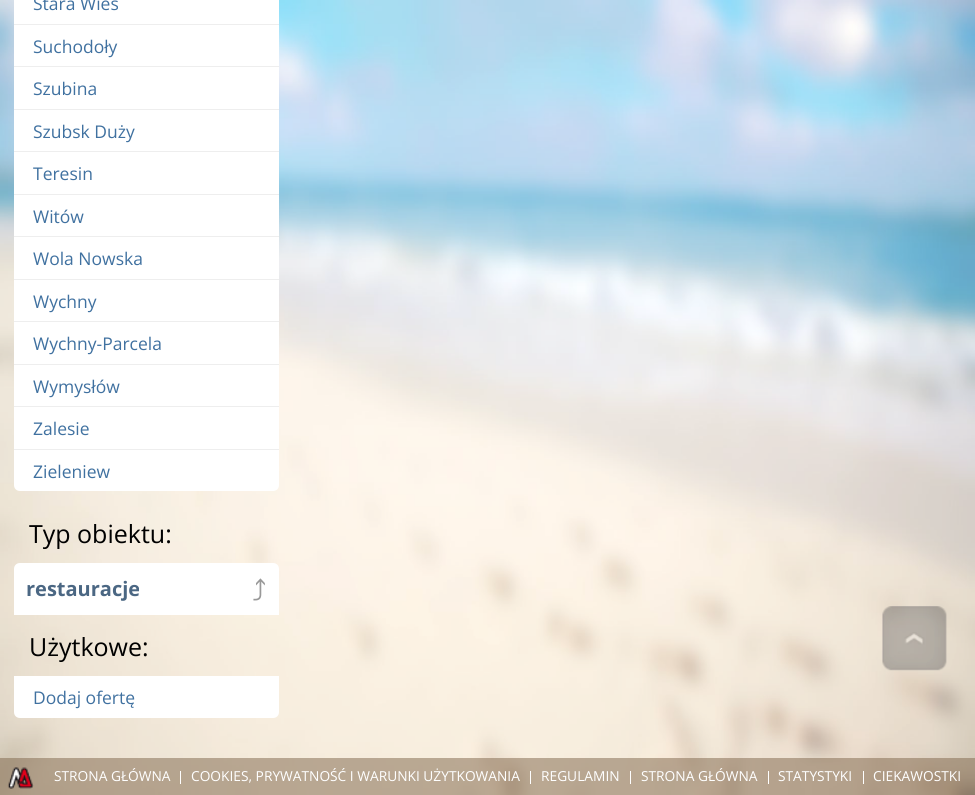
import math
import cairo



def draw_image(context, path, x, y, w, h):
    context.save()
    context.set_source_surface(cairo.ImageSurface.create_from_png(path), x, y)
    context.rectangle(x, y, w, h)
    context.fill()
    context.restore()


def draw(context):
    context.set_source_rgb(1, 1, 1)
    context.paint()
    draw_image(context, "images/1.png", 0, 0, 975, 795)
    context.set_source_rgb(1, 1, 1)
    context.rectangle(14, 0, 265, 24)
    context.fill()
    context.rectangle(14, 25, 265, 41)
    context.fill()
    context.set_source_rgb(238 / 255, 238 / 255, 238 / 255)
    context.rectangle(14, 24, 265, 1)
    context.fill()
    context.set_source_rgb(1, 1, 1)
    context.rectangle(14, 67, 265, 42)
    context.fill()
    context.set_source_rgb(238 / 255, 238 / 255, 238 / 255)
    context.rectangle(14, 66, 265, 1)
    context.fill()
    context.set_source_rgb(1, 1, 1)
    context.rectangle(14, 110, 265, 41)
    context.fill()
    context.set_source_rgb(238 / 255, 238 / 255, 238 / 255)
    context.rectangle(14, 109, 265, 1)
    context.fill()
    context.set_source_rgb(1, 1, 1)
    context.rectangle(14, 152, 265, 42)
    context.fill()
    context.set_source_rgb(238 / 255, 238 / 255, 238 / 255)
    context.rectangle(14, 151, 265, 1)
    context.fill()
    context.set_source_rgb(1, 1, 1)
    context.rectangle(14, 195, 265, 41)
    context.fill()
    context.set_source_rgb(238 / 255, 238 / 255, 238 / 255)
    context.rectangle(14, 194, 265, 1)
    context.fill()
    context.set_source_rgb(1, 1, 1)
    context.rectangle(14, 237, 265, 42)
    context.fill()
    context.set_source_rgb(238 / 255, 238 / 255, 238 / 255)
    context.rectangle(14, 236, 265, 1)
    context.fill()
    context.set_source_rgb(1, 1, 1)
    context.rectangle(14, 280, 265, 41)
    context.fill()
    context.set_source_rgb(238 / 255, 238 / 255, 238 / 255)
    context.rectangle(14, 279, 265, 1)
    context.fill()
    context.set_source_rgb(1, 1, 1)
    context.rectangle(14, 322, 265, 42)
    context.fill()
    context.set_source_rgb(238 / 255, 238 / 255, 238 / 255)
    context.rectangle(14, 321, 265, 1)
    context.fill()
    context.set_source_rgb(1, 1, 1)
    context.rectangle(14, 365, 265, 41)
    context.fill()
    context.set_source_rgb(238 / 255, 238 / 255, 238 / 255)
    context.rectangle(14, 364, 265, 1)
    context.fill()
    context.set_source_rgb(1, 1, 1)
    context.rectangle(14, 407, 265, 42)
    context.fill()
    context.set_source_rgb(238 / 255, 238 / 255, 238 / 255)
    context.rectangle(14, 406, 265, 1)
    context.fill()
    context.set_source_rgb(1, 1, 1)
    context.new_path()
    context.move_to(14, 449)
    context.line_to(279, 449)
    context.line_to(279, 485)
    context.curve_to(279, 488.5, 276.5, 491, 273, 491)
    context.line_to(20, 491)
    context.curve_to(16.5, 491, 14, 488.5, 14, 485)
    context.close_path()
    context.fill()
    context.set_source_rgb(238 / 255, 238 / 255, 238 / 255)
    context.rectangle(14, 449, 265, 1)
    context.fill()
    context.set_source_rgb(1, 1, 1)
    context.new_path()
    context.move_to(20, 563)
    context.line_to(273, 563)
    context.curve_to(276.5, 563, 279, 565.5, 279, 569)
    context.line_to(279, 615)
    context.line_to(14, 615)
    context.line_to(14, 569)
    context.curve_to(14, 565.5, 16.5, 563, 20, 563)
    context.close_path()
    context.fill()
    context.new_path()
    context.move_to(14, 676)
    context.line_to(279, 676)
    context.line_to(279, 712)
    context.curve_to(279, 715.5, 276.5, 718, 273, 718)
    context.line_to(20, 718)
    context.curve_to(16.5, 718, 14, 715.5, 14, 712)
    context.close_path()
    context.fill()
    draw_image(context, "images/2.png", 882, 606, 65, 65)
    draw_image(context, "images/3.png", 882, 606, 64, 64)
    context.set_source_rgba(131 / 255, 107 / 255, 79 / 255, 0.53)
    context.rectangle(0, 758, 975, 37)
    context.fill()
    draw_image(context, "images/4.png", 7, 767, 27, 22)
    context.set_source_rgb(1, 1, 1)
    context.rectangle(180, 771, 1, 13)
    context.fill()
    context.rectangle(530, 771, 1, 13)
    context.fill()
    context.rectangle(630, 771, 1, 13)
    context.fill()
    context.rectangle(768, 771, 1, 13)
    context.fill()
    context.rectangle(863, 771, 1, 13)
    context.fill()
    context.select_font_face("Open Sans")
    context.set_font_size(17.5)
    context.set_source_rgb(64 / 255, 113 / 255, 160 / 255)
    context.move_to(33, 10)
    context.show_text("Stara Wieś")
    context.move_to(33, 53)
    context.show_text("Suchodoły")
    context.move_to(33, 95)
    context.show_text("Szubina")
    context.move_to(33, 138)
    context.show_text("Szubsk Duży")
    context.move_to(33, 180)
    context.show_text("Teresin")
    context.move_to(33, 223)
    context.show_text("Witów")
    context.move_to(33, 265)
    context.show_text("Wola Nowska")
    context.move_to(33, 308)
    context.show_text("Wychny")
    context.move_to(33, 350)
    context.show_text("Wychny-Parcela")
    context.move_to(33, 393)
    context.show_text("Wymysłów")
    context.move_to(33, 435)
    context.show_text("Zalesie")
    context.move_to(33, 478)
    context.show_text("Zieleniew")
    context.set_font_size(25)
    context.set_source_rgb(0, 0, 0)
    context.move_to(29, 543)
    context.show_text("Typ obiektu:")
    context.select_font_face("Open Sans", cairo.FontSlant.NORMAL, cairo.FontWeight.BOLD)
    context.set_font_size(20)
    context.set_source_rgb(75 / 255, 103 / 255, 131 / 255)
    context.move_to(26, 596)
    context.show_text("restauracje")
    context.select_font_face("IPAGothic")
    context.set_font_size(29)
    context.set_source_rgb(153 / 255, 153 / 255, 153 / 255)
    context.move_to(252, 601)
    context.show_text("⤴")
    context.select_font_face("Open Sans")
    context.set_font_size(25)
    context.set_source_rgb(0, 0, 0)
    context.move_to(29, 656)
    context.show_text("Użytkowe:")
    context.set_font_size(17.5)
    context.set_source_rgb(64 / 255, 113 / 255, 160 / 255)
    context.move_to(33, 704)
    context.show_text("Dodaj ofertę")
    context.set_font_size(13.75)
    context.set_source_rgb(1, 1, 1)
    context.move_to(54, 781)
    context.show_text("STRONA GŁÓWNA")
    context.move_to(191, 781)
    context.show_text("COOKIES, PRYWATNOŚĆ I WARUNKI UŻYTKOWANIA")
    context.move_to(541, 781)
    context.show_text("REGULAMIN")
    context.move_to(641, 781)
    context.show_text("STRONA GŁÓWNA")
    context.move_to(778, 781)
    context.show_text("STATYSTYKI")
    context.move_to(873, 781)
    context.show_text("CIEKAWOSTKI")


surface = cairo.ImageSurface(cairo.Format.RGB24, 975, 795)
context = cairo.Context(surface)
options = cairo.FontOptions()
options.set_hint_metrics(cairo.HintMetrics.OFF)
options.set_hint_style(cairo.HintStyle.NONE)
context.set_font_options(options)
context.set_miter_limit(4)
draw(context)
surface.write_to_png("out.png")
